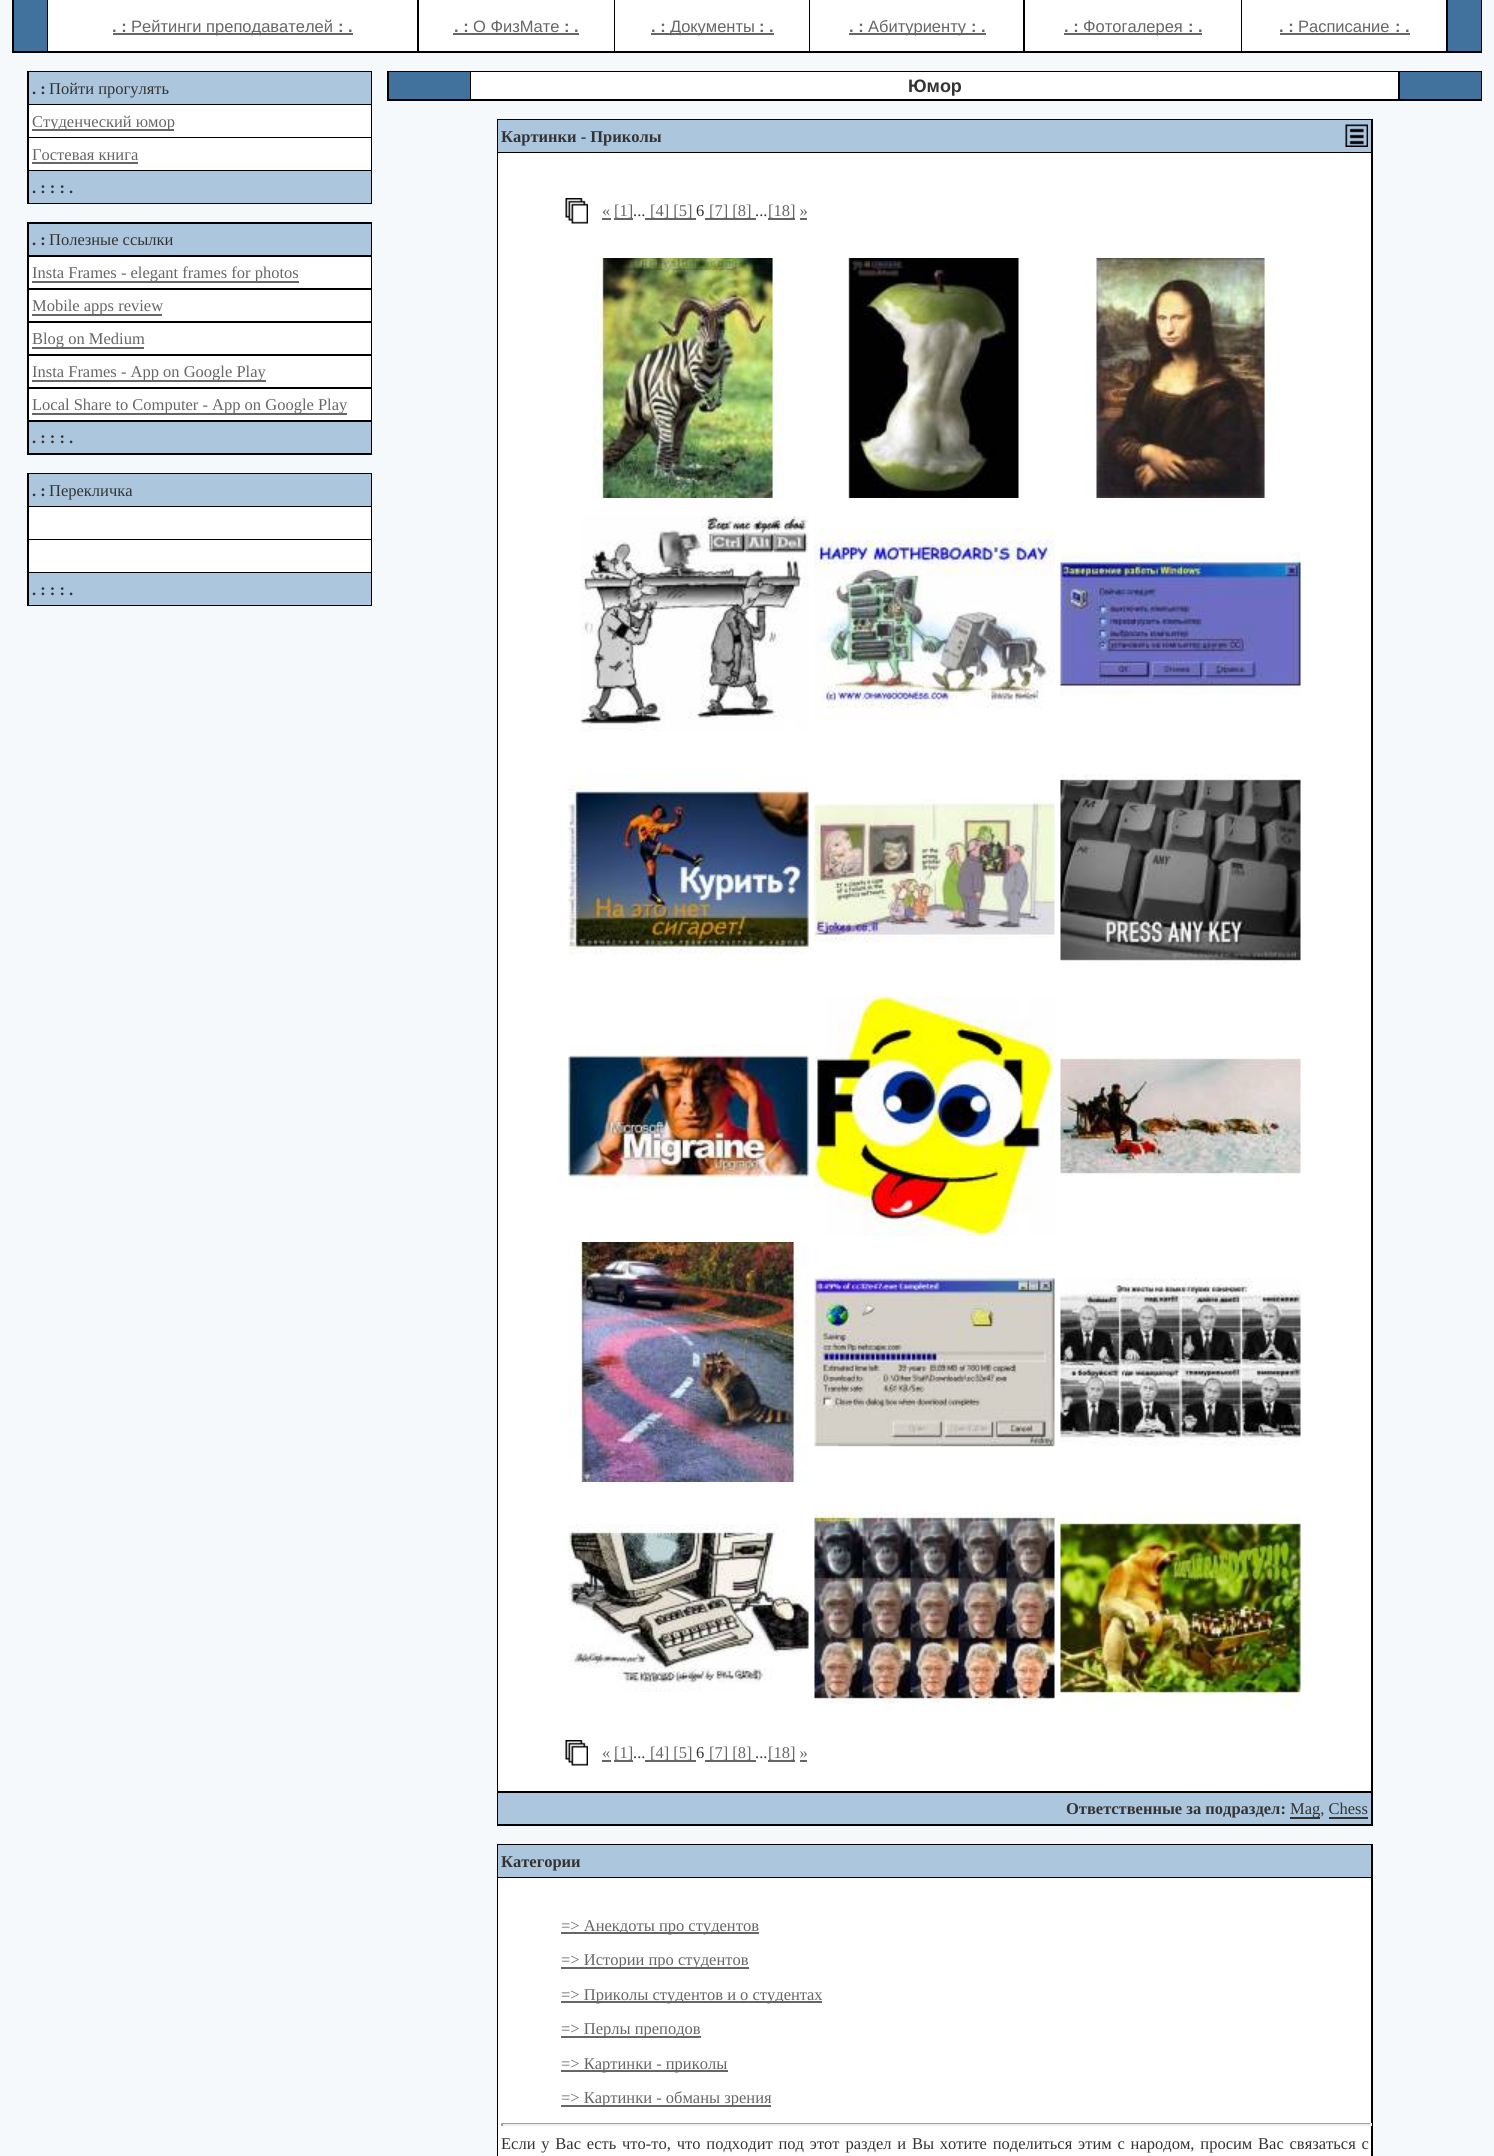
import math
import cairo



def draw_spaced(context, x, y, s, letter, word):
    context.move_to(x, y)
    for ch in s:
        context.show_text(ch)
        context.rel_move_to(letter + word * (ch == ' '), 0)


def draw_image(context, path, x, y, w, h):
    context.save()
    context.set_source_surface(cairo.ImageSurface.create_from_png(path), x, y)
    context.rectangle(x, y, w, h)
    context.fill()
    context.restore()


def draw(context):
    context.set_source_rgb(245 / 255, 249 / 255, 252 / 255)
    context.paint()
    context.set_source_rgb(0, 0, 0)
    context.rectangle(12, 0, 1470, 53)
    context.fill()
    context.set_source_rgb(65 / 255, 114 / 255, 158 / 255)
    context.rectangle(14, 0, 33, 51)
    context.fill()
    context.set_source_rgb(1, 1, 1)
    context.rectangle(48, 0, 369, 51)
    context.fill()
    context.set_source_rgb(102 / 255, 102 / 255, 102 / 255)
    context.rectangle(113, 33, 240, 2)
    context.fill()
    context.set_source_rgb(1, 1, 1)
    context.rectangle(419, 0, 195, 51)
    context.fill()
    context.set_source_rgb(102 / 255, 102 / 255, 102 / 255)
    context.rectangle(453, 33, 126, 2)
    context.fill()
    context.set_source_rgb(1, 1, 1)
    context.rectangle(615, 0, 194, 51)
    context.fill()
    context.set_source_rgb(102 / 255, 102 / 255, 102 / 255)
    context.rectangle(651, 33, 123, 2)
    context.fill()
    context.set_source_rgb(1, 1, 1)
    context.rectangle(810, 0, 213, 51)
    context.fill()
    context.set_source_rgb(102 / 255, 102 / 255, 102 / 255)
    context.rectangle(849, 33, 137, 2)
    context.fill()
    context.set_source_rgb(1, 1, 1)
    context.rectangle(1025, 0, 216, 51)
    context.fill()
    context.set_source_rgb(102 / 255, 102 / 255, 102 / 255)
    context.rectangle(1064, 33, 138, 2)
    context.fill()
    context.set_source_rgb(1, 1, 1)
    context.rectangle(1242, 0, 204, 51)
    context.fill()
    context.set_source_rgb(102 / 255, 102 / 255, 102 / 255)
    context.rectangle(1280, 33, 130, 2)
    context.fill()
    context.set_source_rgb(65 / 255, 114 / 255, 158 / 255)
    context.rectangle(1448, 0, 33, 51)
    context.fill()
    context.set_source_rgb(0, 0, 0)
    context.rectangle(27, 71, 345, 133)
    context.fill()
    context.set_source_rgb(172 / 255, 198 / 255, 221 / 255)
    context.rectangle(29, 72, 342, 32)
    context.fill()
    context.set_source_rgb(1, 1, 1)
    context.rectangle(29, 105, 342, 32)
    context.fill()
    context.set_source_rgb(102 / 255, 102 / 255, 102 / 255)
    context.rectangle(32, 129, 142, 2)
    context.fill()
    context.set_source_rgb(1, 1, 1)
    context.rectangle(29, 138, 342, 32)
    context.fill()
    context.set_source_rgb(102 / 255, 102 / 255, 102 / 255)
    context.rectangle(32, 162, 106, 2)
    context.fill()
    context.set_source_rgb(172 / 255, 198 / 255, 221 / 255)
    context.rectangle(29, 171, 342, 32)
    context.fill()
    context.set_source_rgb(0, 0, 0)
    context.rectangle(27, 222, 345, 233)
    context.fill()
    context.set_source_rgb(172 / 255, 198 / 255, 221 / 255)
    context.rectangle(29, 224, 342, 31)
    context.fill()
    context.set_source_rgb(1, 1, 1)
    context.rectangle(29, 257, 342, 31)
    context.fill()
    context.set_source_rgb(102 / 255, 102 / 255, 102 / 255)
    context.rectangle(32, 281, 267, 2)
    context.fill()
    context.set_source_rgb(1, 1, 1)
    context.rectangle(29, 290, 342, 31)
    context.fill()
    context.set_source_rgb(102 / 255, 102 / 255, 102 / 255)
    context.rectangle(32, 314, 130, 2)
    context.fill()
    context.set_source_rgb(1, 1, 1)
    context.rectangle(29, 323, 342, 31)
    context.fill()
    context.set_source_rgb(102 / 255, 102 / 255, 102 / 255)
    context.rectangle(32, 347, 112, 2)
    context.fill()
    context.set_source_rgb(1, 1, 1)
    context.rectangle(29, 356, 342, 31)
    context.fill()
    context.set_source_rgb(102 / 255, 102 / 255, 102 / 255)
    context.rectangle(32, 380, 234, 2)
    context.fill()
    context.set_source_rgb(1, 1, 1)
    context.rectangle(29, 389, 342, 31)
    context.fill()
    context.set_source_rgb(102 / 255, 102 / 255, 102 / 255)
    context.rectangle(32, 413, 315, 2)
    context.fill()
    context.set_source_rgb(172 / 255, 198 / 255, 221 / 255)
    context.rectangle(29, 422, 342, 31)
    context.fill()
    context.set_source_rgb(0, 0, 0)
    context.rectangle(27, 473, 345, 133)
    context.fill()
    context.set_source_rgb(172 / 255, 198 / 255, 221 / 255)
    context.rectangle(29, 474, 342, 32)
    context.fill()
    context.set_source_rgb(1, 1, 1)
    context.rectangle(29, 507, 342, 32)
    context.fill()
    context.rectangle(29, 540, 342, 32)
    context.fill()
    context.set_source_rgb(172 / 255, 198 / 255, 221 / 255)
    context.rectangle(29, 573, 342, 32)
    context.fill()
    context.set_source_rgb(0, 0, 0)
    context.rectangle(387, 71, 1095, 30)
    context.fill()
    context.set_source_rgb(65 / 255, 114 / 255, 158 / 255)
    context.rectangle(389, 72, 81, 27)
    context.fill()
    context.set_source_rgb(1, 1, 1)
    context.rectangle(471, 72, 927, 27)
    context.fill()
    context.set_source_rgb(65 / 255, 114 / 255, 158 / 255)
    context.rectangle(1400, 72, 81, 27)
    context.fill()
    context.set_source_rgb(0, 0, 0)
    context.rectangle(497, 119, 876, 1707)
    context.fill()
    context.set_source_rgb(172 / 255, 198 / 255, 221 / 255)
    context.rectangle(498, 120, 873, 32)
    context.fill()
    draw_image(context, "images/1.png", 1345, 124, 23, 23)
    context.set_source_rgb(1, 1, 1)
    context.rectangle(498, 153, 873, 1638)
    context.fill()
    draw_image(context, "images/2.png", 565, 198, 23, 26)
    context.set_source_rgb(102 / 255, 102 / 255, 102 / 255)
    context.rectangle(602, 218, 9, 2)
    context.fill()
    context.rectangle(614, 218, 19, 2)
    context.fill()
    context.rectangle(645, 218, 51, 2)
    context.fill()
    context.rectangle(705, 218, 51, 2)
    context.fill()
    context.rectangle(768, 218, 27, 2)
    context.fill()
    context.rectangle(800, 218, 7, 2)
    context.fill()
    draw_image(context, "images/3.png", 592, 258, 193, 240)
    draw_image(context, "images/4.png", 848, 258, 171, 240)
    draw_image(context, "images/5.png", 1085, 258, 191, 240)
    draw_image(context, "images/6.png", 580, 515, 229, 217)
    draw_image(context, "images/7.png", 814, 527, 241, 194)
    draw_image(context, "images/8.png", 1060, 551, 241, 146)
    draw_image(context, "images/9.png", 568, 774, 241, 187)
    draw_image(context, "images/10.png", 814, 799, 241, 144)
    draw_image(context, "images/11.png", 1060, 774, 241, 192)
    draw_image(context, "images/12.png", 568, 1044, 241, 145)
    draw_image(context, "images/13.png", 814, 996, 241, 240)
    draw_image(context, "images/14.png", 1060, 1056, 241, 120)
    draw_image(context, "images/15.png", 568, 1242, 241, 240)
    draw_image(context, "images/16.png", 814, 1266, 241, 181)
    draw_image(context, "images/17.png", 1060, 1278, 241, 168)
    draw_image(context, "images/18.png", 568, 1524, 241, 168)
    draw_image(context, "images/19.png", 814, 1511, 241, 194)
    draw_image(context, "images/20.png", 1060, 1511, 241, 194)
    draw_image(context, "images/2.png", 565, 1740, 23, 26)
    context.rectangle(602, 1760, 9, 2)
    context.fill()
    context.rectangle(614, 1760, 19, 2)
    context.fill()
    context.rectangle(645, 1760, 51, 2)
    context.fill()
    context.rectangle(705, 1760, 51, 2)
    context.fill()
    context.rectangle(768, 1760, 27, 2)
    context.fill()
    context.rectangle(800, 1760, 7, 2)
    context.fill()
    context.set_source_rgb(172 / 255, 198 / 255, 221 / 255)
    context.rectangle(498, 1793, 873, 31)
    context.fill()
    context.set_source_rgb(51 / 255, 51 / 255, 51 / 255)
    context.rectangle(1290, 1817, 30, 2)
    context.fill()
    context.rectangle(1329, 1817, 39, 2)
    context.fill()
    context.set_source_rgb(0, 0, 0)
    context.rectangle(497, 1844, 876, 312)
    context.fill()
    context.set_source_rgb(172 / 255, 198 / 255, 221 / 255)
    context.rectangle(498, 1845, 873, 32)
    context.fill()
    context.set_source_rgb(1, 1, 1)
    context.rectangle(498, 1878, 873, 278)
    context.fill()
    context.set_source_rgb(102 / 255, 102 / 255, 102 / 255)
    context.rectangle(561, 1932, 198, 2)
    context.fill()
    context.rectangle(561, 1967, 188, 2)
    context.fill()
    context.rectangle(561, 2001, 261, 2)
    context.fill()
    context.rectangle(561, 2036, 140, 2)
    context.fill()
    context.rectangle(561, 2070, 167, 2)
    context.fill()
    context.rectangle(561, 2105, 210, 2)
    context.fill()
    context.set_source_rgb(159 / 255, 159 / 255, 159 / 255)
    context.rectangle(501, 2123, 870, 1)
    context.fill()
    context.set_source_rgb(238 / 255, 238 / 255, 238 / 255)
    context.rectangle(1370, 2123, 2, 3)
    context.fill()
    context.rectangle(501, 2124, 870, 2)
    context.fill()
    context.set_source_rgb(159 / 255, 159 / 255, 159 / 255)
    context.rectangle(501, 2123, 2, 3)
    context.fill()
    context.select_font_face("Liberation Sans", cairo.FontSlant.NORMAL, cairo.FontWeight.BOLD)
    context.set_font_size(16.5)
    context.set_source_rgb(102 / 255, 102 / 255, 102 / 255)
    context.move_to(112, 32)
    context.show_text(". :")
    context.select_font_face("Liberation Sans")
    context.move_to(131, 32)
    context.show_text("Рейтинги преподавателей")
    context.select_font_face("Liberation Sans", cairo.FontSlant.NORMAL, cairo.FontWeight.BOLD)
    context.move_to(338, 32)
    context.show_text(": .")
    context.move_to(454, 32)
    context.show_text(". :")
    context.select_font_face("Liberation Sans")
    context.move_to(473, 32)
    context.show_text("О ФизМате")
    context.select_font_face("Liberation Sans", cairo.FontSlant.NORMAL, cairo.FontWeight.BOLD)
    context.move_to(564, 32)
    context.show_text(": .")
    context.move_to(651, 32)
    context.show_text(". :")
    context.select_font_face("Liberation Sans")
    context.move_to(670, 32)
    context.show_text("Документы")
    context.select_font_face("Liberation Sans", cairo.FontSlant.NORMAL, cairo.FontWeight.BOLD)
    context.move_to(759, 32)
    context.show_text(": .")
    context.move_to(849, 32)
    context.show_text(". :")
    context.select_font_face("Liberation Sans")
    context.move_to(868, 32)
    context.show_text("Абитуриенту")
    context.select_font_face("Liberation Sans", cairo.FontSlant.NORMAL, cairo.FontWeight.BOLD)
    context.move_to(971, 32)
    context.show_text(": .")
    context.move_to(1064, 32)
    context.show_text(". :")
    context.select_font_face("Liberation Sans")
    context.move_to(1083, 32)
    context.show_text("Фотогалерея")
    context.select_font_face("Liberation Sans", cairo.FontSlant.NORMAL, cairo.FontWeight.BOLD)
    context.move_to(1188, 32)
    context.show_text(": .")
    context.move_to(1279, 32)
    context.show_text(". :")
    context.select_font_face("Liberation Sans")
    context.move_to(1298, 32)
    context.show_text("Расписание")
    context.select_font_face("Liberation Sans", cairo.FontSlant.NORMAL, cairo.FontWeight.BOLD)
    context.move_to(1395, 32)
    context.show_text(": .")
    context.select_font_face("Liberation Serif", cairo.FontSlant.NORMAL, cairo.FontWeight.BOLD)
    context.set_source_rgb(51 / 255, 51 / 255, 51 / 255)
    context.move_to(32, 94)
    context.show_text(". :")
    context.select_font_face("Liberation Serif")
    context.move_to(49, 94)
    context.show_text("Пойти прогулять")
    context.set_source_rgb(102 / 255, 102 / 255, 102 / 255)
    context.move_to(32, 127)
    context.show_text("Студенческий юмор")
    context.move_to(32, 160)
    context.show_text("Гостевая книга")
    context.select_font_face("Liberation Serif", cairo.FontSlant.NORMAL, cairo.FontWeight.BOLD)
    context.set_source_rgb(51 / 255, 51 / 255, 51 / 255)
    context.move_to(32, 193)
    context.show_text(". : : : .")
    context.move_to(32, 245)
    context.show_text(". :")
    context.select_font_face("Liberation Serif")
    context.move_to(49, 245)
    context.show_text("Полезные ссылки")
    context.set_source_rgb(102 / 255, 102 / 255, 102 / 255)
    context.move_to(32, 278)
    context.show_text("Insta Frames - elegant frames for photos")
    context.move_to(32, 311)
    context.show_text("Mobile apps review")
    context.move_to(32, 344)
    context.show_text("Blog on Medium")
    context.move_to(32, 377)
    context.show_text("Insta Frames - App on Google Play")
    context.move_to(32, 410)
    context.show_text("Local Share to Computer - App on Google Play")
    context.select_font_face("Liberation Serif", cairo.FontSlant.NORMAL, cairo.FontWeight.BOLD)
    context.set_source_rgb(51 / 255, 51 / 255, 51 / 255)
    context.move_to(32, 443)
    context.show_text(". : : : .")
    context.move_to(32, 496)
    context.show_text(". :")
    context.select_font_face("Liberation Serif")
    context.move_to(49, 496)
    context.show_text("Перекличка")
    context.select_font_face("Liberation Serif", cairo.FontSlant.NORMAL, cairo.FontWeight.BOLD)
    context.move_to(32, 595)
    context.show_text(". : : : .")
    context.select_font_face("Liberation Sans", cairo.FontSlant.NORMAL, cairo.FontWeight.BOLD)
    context.set_font_size(18)
    context.move_to(908, 92)
    context.show_text("Юмор")
    context.select_font_face("Liberation Serif", cairo.FontSlant.NORMAL, cairo.FontWeight.BOLD)
    context.set_font_size(16.5)
    context.move_to(501, 142)
    context.show_text("Картинки - Приколы")
    context.select_font_face("Liberation Serif")
    context.set_source_rgb(102 / 255, 102 / 255, 102 / 255)
    context.move_to(602, 216)
    context.show_text("«")
    context.move_to(614, 216)
    context.show_text("[1]")
    context.set_source_rgb(51 / 255, 51 / 255, 51 / 255)
    context.move_to(633, 216)
    context.show_text("...")
    context.set_source_rgb(102 / 255, 102 / 255, 102 / 255)
    context.move_to(650, 216)
    context.show_text("[4] [5]")
    context.set_source_rgb(51 / 255, 51 / 255, 51 / 255)
    context.move_to(696, 216)
    context.show_text("6")
    context.set_source_rgb(102 / 255, 102 / 255, 102 / 255)
    context.move_to(709, 216)
    context.show_text("[7] [8]")
    context.set_source_rgb(51 / 255, 51 / 255, 51 / 255)
    context.move_to(755, 216)
    context.show_text("...")
    context.set_source_rgb(102 / 255, 102 / 255, 102 / 255)
    context.move_to(768, 216)
    context.show_text("[18] »")
    context.move_to(602, 1758)
    context.show_text("«")
    context.move_to(614, 1758)
    context.show_text("[1]")
    context.set_source_rgb(51 / 255, 51 / 255, 51 / 255)
    context.move_to(633, 1758)
    context.show_text("...")
    context.set_source_rgb(102 / 255, 102 / 255, 102 / 255)
    context.move_to(650, 1758)
    context.show_text("[4] [5]")
    context.set_source_rgb(51 / 255, 51 / 255, 51 / 255)
    context.move_to(696, 1758)
    context.show_text("6")
    context.set_source_rgb(102 / 255, 102 / 255, 102 / 255)
    context.move_to(709, 1758)
    context.show_text("[7] [8]")
    context.set_source_rgb(51 / 255, 51 / 255, 51 / 255)
    context.move_to(755, 1758)
    context.show_text("...")
    context.set_source_rgb(102 / 255, 102 / 255, 102 / 255)
    context.move_to(768, 1758)
    context.show_text("[18] »")
    context.select_font_face("Liberation Serif", cairo.FontSlant.NORMAL, cairo.FontWeight.BOLD)
    context.set_source_rgb(51 / 255, 51 / 255, 51 / 255)
    context.move_to(1066, 1814)
    context.show_text("Ответственные за подраздел:")
    context.select_font_face("Liberation Serif")
    context.move_to(1290, 1814)
    context.show_text("Mag, Chess")
    context.select_font_face("Liberation Serif", cairo.FontSlant.NORMAL, cairo.FontWeight.BOLD)
    context.move_to(501, 1867)
    context.show_text("Категории")
    context.select_font_face("Liberation Serif")
    context.set_source_rgb(102 / 255, 102 / 255, 102 / 255)
    context.move_to(561, 1931)
    context.show_text("=> Анекдоты про студентов")
    context.move_to(561, 1965)
    context.show_text("=> Истории про студентов")
    context.move_to(561, 2000)
    context.show_text("=> Приколы студентов и о студентах")
    context.move_to(561, 2034)
    context.show_text("=> Перлы преподов")
    context.move_to(561, 2069)
    context.show_text("=> Картинки - приколы")
    context.move_to(561, 2103)
    context.show_text("=> Картинки - обманы зрения")
    context.set_source_rgb(51 / 255, 51 / 255, 51 / 255)
    draw_spaced(context, 501, 2149, "Если у Вас есть что-то, что подходит под этот раздел и Вы хотите поделиться этим с народом, просим Вас связаться с", 0, 1.7)


surface = cairo.ImageSurface(cairo.Format.RGB24, 1494, 2156)
context = cairo.Context(surface)
options = cairo.FontOptions()
options.set_hint_metrics(cairo.HintMetrics.OFF)
options.set_hint_style(cairo.HintStyle.NONE)
context.set_font_options(options)
context.set_miter_limit(4)
draw(context)
surface.write_to_png("out.png")
